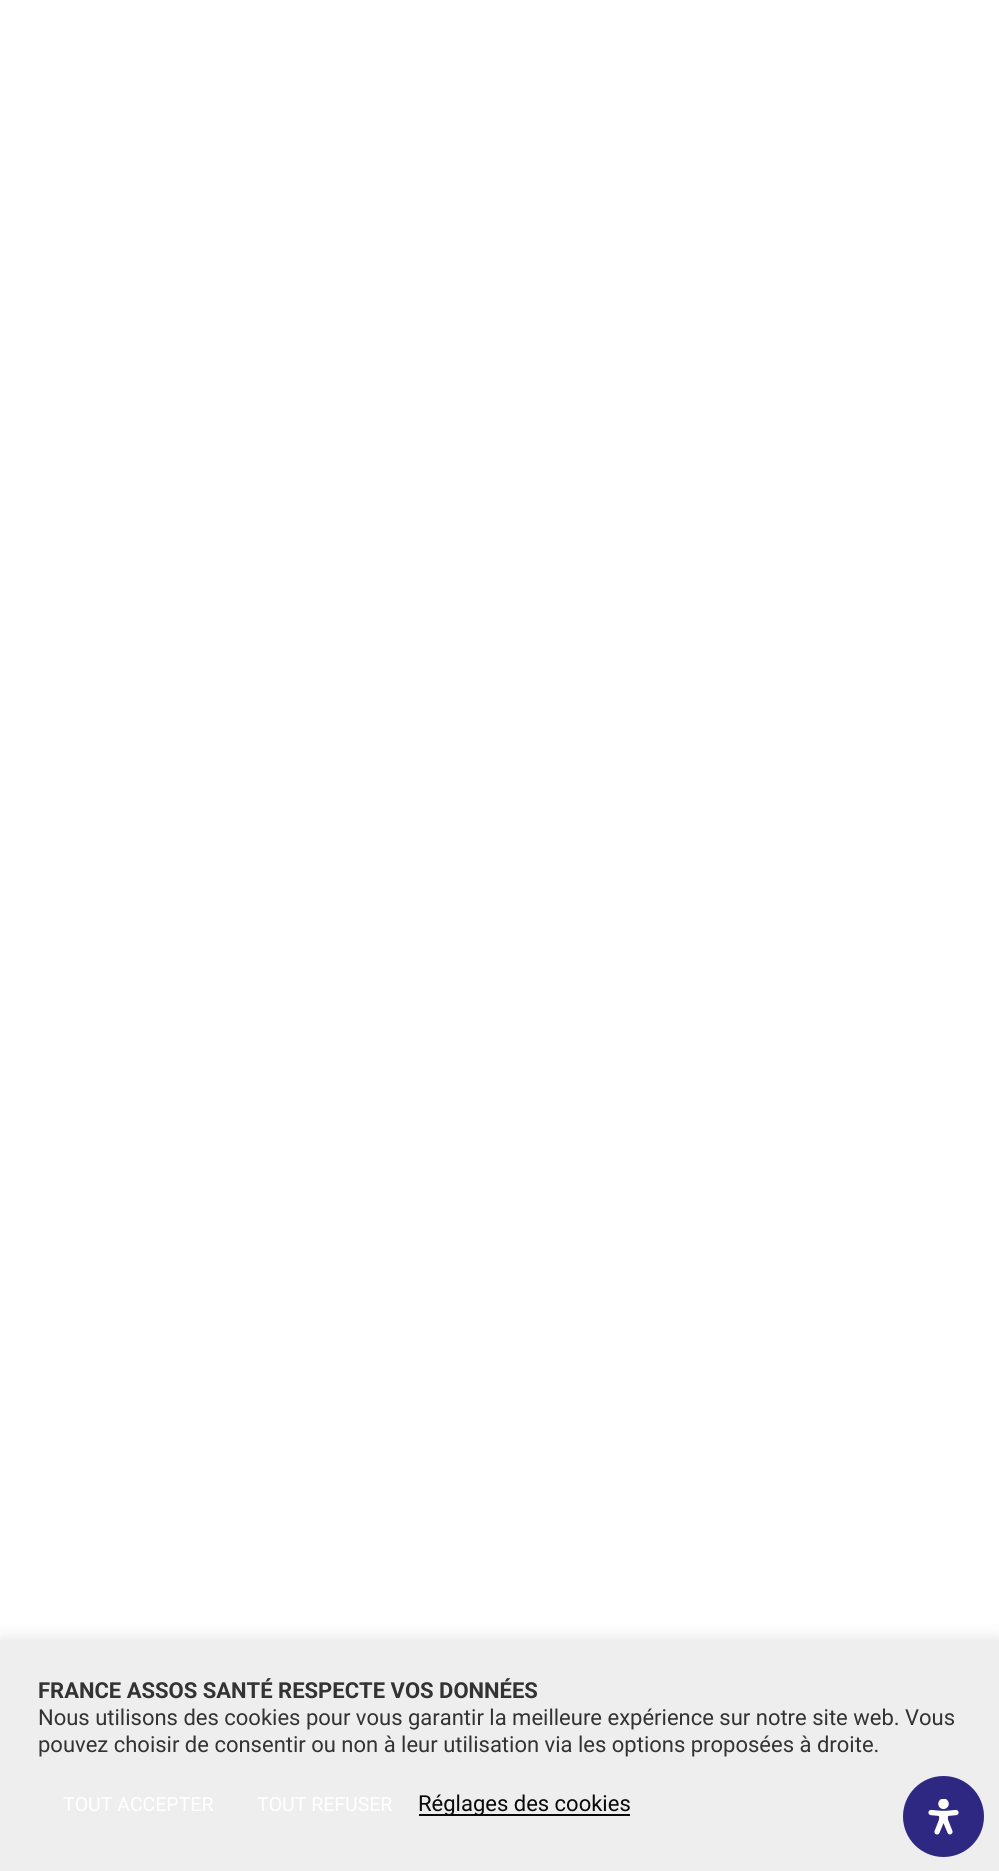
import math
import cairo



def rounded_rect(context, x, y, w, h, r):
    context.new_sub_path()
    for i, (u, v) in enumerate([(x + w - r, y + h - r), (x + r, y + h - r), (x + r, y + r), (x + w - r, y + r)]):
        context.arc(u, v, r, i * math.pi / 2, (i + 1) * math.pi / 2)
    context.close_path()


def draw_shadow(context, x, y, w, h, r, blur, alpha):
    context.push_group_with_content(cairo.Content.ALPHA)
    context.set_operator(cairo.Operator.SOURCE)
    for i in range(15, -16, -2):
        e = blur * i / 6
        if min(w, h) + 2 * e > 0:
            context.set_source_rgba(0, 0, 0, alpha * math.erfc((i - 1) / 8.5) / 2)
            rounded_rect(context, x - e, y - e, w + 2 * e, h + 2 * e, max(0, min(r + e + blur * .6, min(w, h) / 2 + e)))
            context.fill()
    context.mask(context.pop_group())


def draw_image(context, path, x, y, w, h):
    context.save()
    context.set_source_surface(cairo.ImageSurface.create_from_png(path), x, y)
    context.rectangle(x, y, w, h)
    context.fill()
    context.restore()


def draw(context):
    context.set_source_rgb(1, 1, 1)
    context.paint()
    context.set_source_rgb(172 / 255, 171 / 255, 171 / 255)
    draw_shadow(context, 0, 1638, 999, 233, 0, 7.5, 0.3)
    context.set_source_rgb(238 / 255, 238 / 255, 238 / 255)
    context.rectangle(0, 1640, 999, 231)
    context.fill()
    context.set_source_rgb(9 / 255, 9 / 255, 9 / 255)
    context.rectangle(419, 1814, 211, 2)
    context.fill()
    context.set_source_rgb(46 / 255, 40 / 255, 130 / 255)
    context.arc(943.5, 1816.5, 40.5, 0, 2 * math.pi)
    context.fill()
    draw_image(context, "images/1.png", 928, 1799, 31, 36)
    context.select_font_face("Roboto", cairo.FontSlant.NORMAL, cairo.FontWeight.BOLD)
    context.set_font_size(22)
    context.set_source_rgb(51 / 255, 51 / 255, 51 / 255)
    context.move_to(38, 1698)
    context.show_text("FRANCE ASSOS SANTÉ RESPECTE VOS DONNÉES")
    context.select_font_face("Roboto")
    context.move_to(38, 1725)
    context.show_text("Nous utilisons des cookies pour vous garantir la meilleure expérience sur notre site web. Vous")
    context.move_to(38, 1752)
    context.show_text("pouvez choisir de consentir ou non à leur utilisation via les options proposées à droite.")
    context.set_font_size(19.5)
    context.set_source_rgb(1, 1, 1)
    context.move_to(63, 1811)
    context.show_text("TOUT ACCEPTER")
    context.move_to(257, 1811)
    context.show_text("TOUT REFUSER")
    context.set_font_size(22)
    context.set_source_rgb(9 / 255, 9 / 255, 9 / 255)
    context.move_to(418, 1811)
    context.show_text("Réglages des cookies")


surface = cairo.ImageSurface(cairo.Format.RGB24, 999, 1871)
context = cairo.Context(surface)
options = cairo.FontOptions()
options.set_hint_metrics(cairo.HintMetrics.OFF)
options.set_hint_style(cairo.HintStyle.NONE)
context.set_font_options(options)
context.set_miter_limit(4)
draw(context)
surface.write_to_png("out.png")
